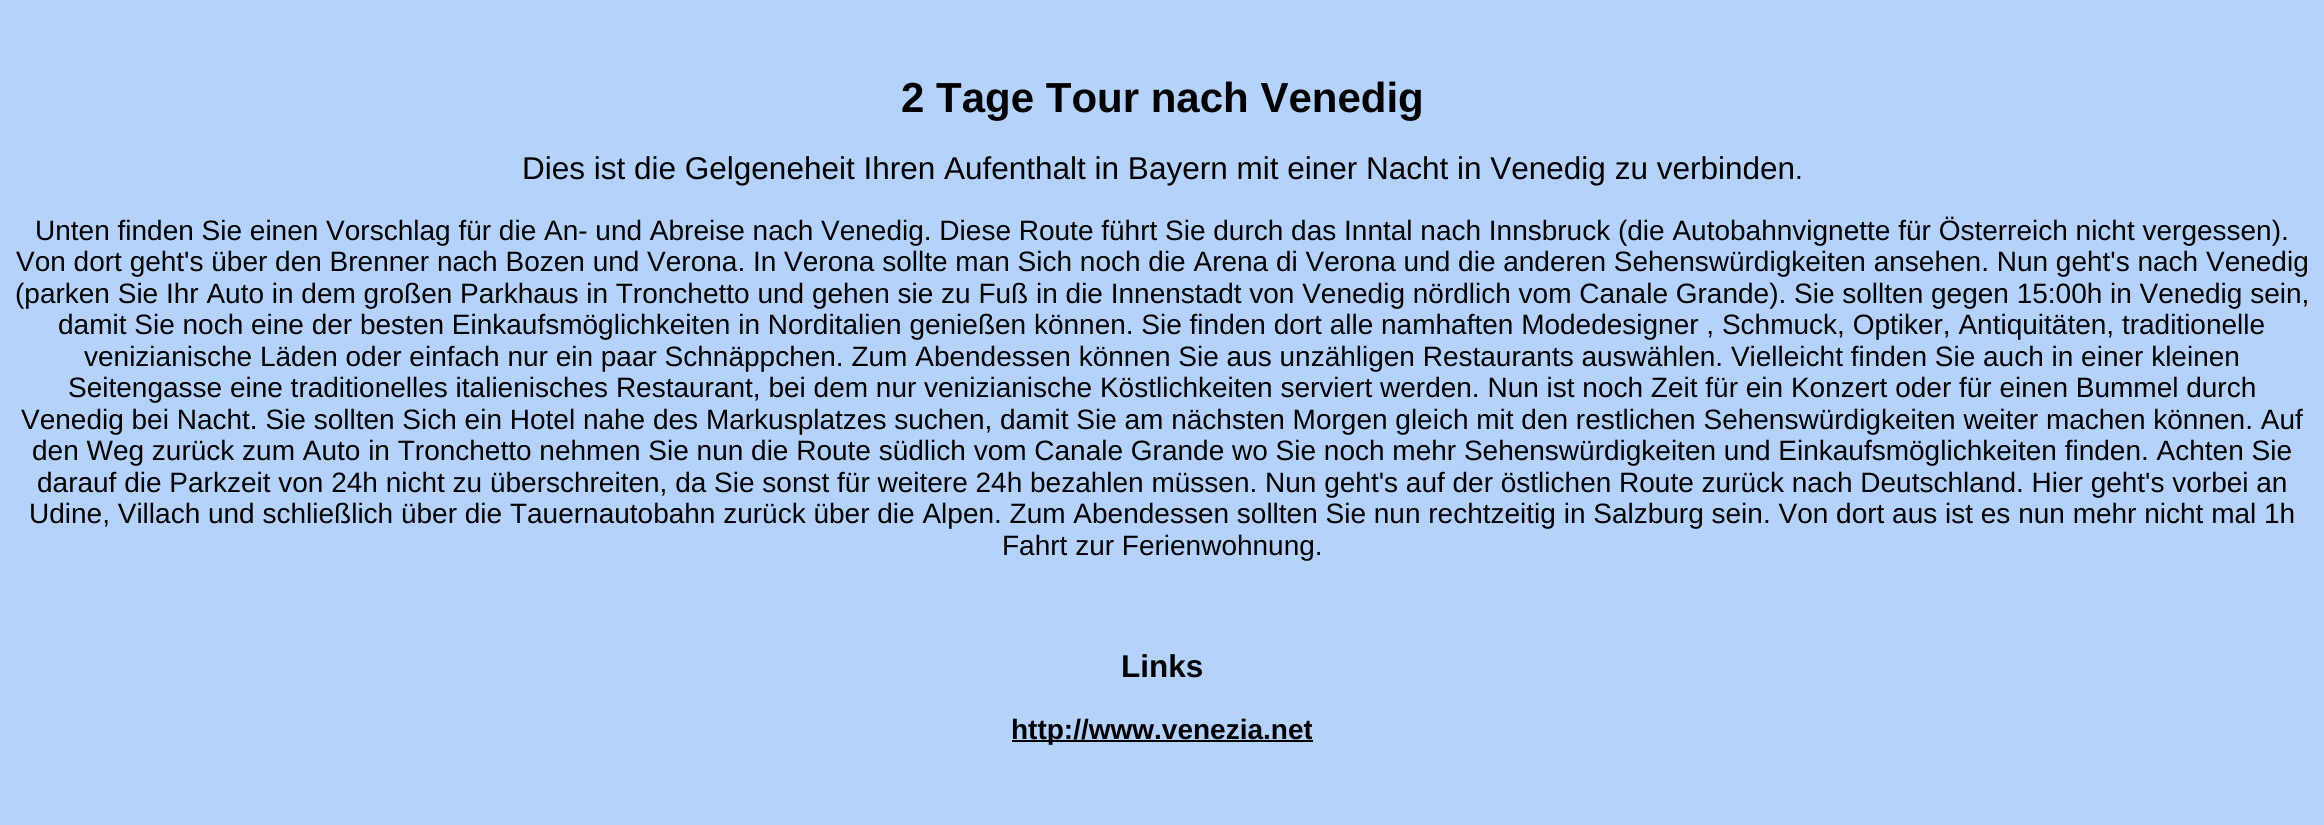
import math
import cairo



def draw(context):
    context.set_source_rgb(180 / 255, 210 / 255, 250 / 255)
    context.paint()
    context.set_source_rgb(0, 0, 0)
    context.rectangle(1012, 740, 301, 2)
    context.fill()
    context.select_font_face("Liberation Sans", cairo.FontSlant.NORMAL, cairo.FontWeight.BOLD)
    context.set_font_size(42)
    context.move_to(901, 112)
    context.show_text("2 Tage Tour nach Venedig")
    context.select_font_face("Liberation Sans")
    context.set_font_size(31.5)
    context.move_to(522, 179)
    context.show_text("Dies ist die Gelgeneheit Ihren Aufenthalt in Bayern mit einer Nacht in Venedig zu verbinden")
    context.set_font_size(28)
    context.move_to(1795, 179)
    context.show_text(".")
    context.move_to(35, 240)
    context.show_text("Unten finden Sie einen Vorschlag für die An- und Abreise nach Venedig. Diese Route führt Sie durch das Inntal nach Innsbruck (die Autobahnvignette für Österreich nicht vergessen).")
    context.move_to(16, 271)
    context.show_text("Von dort geht's über den Brenner nach Bozen und Verona. In Verona sollte man Sich noch die Arena di Verona und die anderen Sehenswürdigkeiten ansehen. Nun geht's nach Venedig")
    context.move_to(15, 303)
    context.show_text("(parken Sie Ihr Auto in dem großen Parkhaus in Tronchetto und gehen sie zu Fuß in die Innenstadt von Venedig nördlich vom Canale Grande). Sie sollten gegen 15:00h in Venedig sein,")
    context.move_to(58, 334)
    context.show_text("damit Sie noch eine der besten Einkaufsmöglichkeiten in Norditalien genießen können. Sie finden dort alle namhaften Modedesigner , Schmuck, Optiker, Antiquitäten, traditionelle")
    context.move_to(84, 366)
    context.show_text("venizianische Läden oder einfach nur ein paar Schnäppchen. Zum Abendessen können Sie aus unzähligen Restaurants auswählen. Vielleicht finden Sie auch in einer kleinen")
    context.move_to(68, 397)
    context.show_text("Seitengasse eine traditionelles italienisches Restaurant, bei dem nur venizianische Köstlichkeiten serviert werden. Nun ist noch Zeit für ein Konzert oder für einen Bummel durch")
    context.move_to(21, 429)
    context.show_text("Venedig bei Nacht. Sie sollten Sich ein Hotel nahe des Markusplatzes suchen, damit Sie am nächsten Morgen gleich mit den restlichen Sehenswürdigkeiten weiter machen können. Auf")
    context.move_to(32, 460)
    context.show_text("den Weg zurück zum Auto in Tronchetto nehmen Sie nun die Route südlich vom Canale Grande wo Sie noch mehr Sehenswürdigkeiten und Einkaufsmöglichkeiten finden. Achten Sie")
    context.move_to(37, 492)
    context.show_text("darauf die Parkzeit von 24h nicht zu überschreiten, da Sie sonst für weitere 24h bezahlen müssen. Nun geht's auf der östlichen Route zurück nach Deutschland. Hier geht's vorbei an")
    context.move_to(29, 523)
    context.show_text("Udine, Villach und schließlich über die Tauernautobahn zurück über die Alpen. Zum Abendessen sollten Sie nun rechtzeitig in Salzburg sein. Von dort aus ist es nun mehr nicht mal 1h")
    context.move_to(1002, 555)
    context.show_text("Fahrt zur Ferienwohnung.")
    context.select_font_face("Liberation Sans", cairo.FontSlant.NORMAL, cairo.FontWeight.BOLD)
    context.set_font_size(31.5)
    context.move_to(1121, 677)
    context.show_text("Links")
    context.set_font_size(28)
    context.move_to(1011, 739)
    context.show_text("http://www.venezia.net")


surface = cairo.ImageSurface(cairo.Format.RGB24, 2324, 825)
context = cairo.Context(surface)
options = cairo.FontOptions()
options.set_hint_metrics(cairo.HintMetrics.OFF)
options.set_hint_style(cairo.HintStyle.NONE)
context.set_font_options(options)
context.set_miter_limit(4)
draw(context)
surface.write_to_png("out.png")
